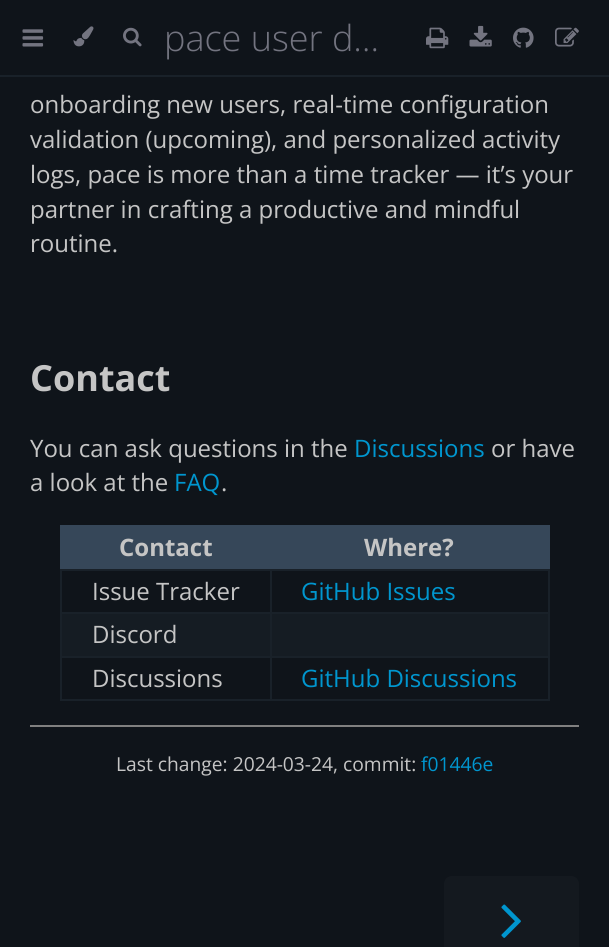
import math
import cairo



def rounded_rect(context, x, y, w, h, r):
    context.new_sub_path()
    for i, (u, v) in enumerate([(x + w - r, y + h - r), (x + r, y + h - r), (x + r, y + r), (x + w - r, y + r)]):
        context.arc(u, v, r, i * math.pi / 2, (i + 1) * math.pi / 2)
    context.close_path()


def draw_image(context, path, x, y, w, h):
    context.save()
    context.set_source_surface(cairo.ImageSurface.create_from_png(path), x, y)
    context.rectangle(x, y, w, h)
    context.fill()
    context.restore()


def draw(context):
    context.set_source_rgb(15 / 255, 20 / 255, 26 / 255)
    context.paint()
    context.set_source_rgb(25 / 255, 33 / 255, 41 / 255)
    context.rectangle(0, 75, 609, 2)
    context.fill()
    draw_image(context, "images/1.png", 22, 29, 22, 18)
    draw_image(context, "images/2.png", 73, 26, 21, 21)
    draw_image(context, "images/3.png", 123, 27, 19, 20)
    draw_image(context, "images/4.png", 426, 27, 23, 22)
    draw_image(context, "images/5.png", 469, 25, 23, 22)
    draw_image(context, "images/6.png", 513, 27, 21, 21)
    draw_image(context, "images/7.png", 555, 27, 24, 20)
    context.set_source_rgb(54 / 255, 71 / 255, 89 / 255)
    context.rectangle(62, 527, 486, 42)
    context.fill()
    context.rectangle(60, 525, 489, 2)
    context.fill()
    context.rectangle(548, 525, 2, 45)
    context.fill()
    context.rectangle(60, 525, 2, 45)
    context.fill()
    context.set_source_rgb(25 / 255, 33 / 255, 41 / 255)
    context.rectangle(270, 569, 279, 2)
    context.fill()
    context.rectangle(270, 612, 279, 2)
    context.fill()
    context.set_source_rgb(21 / 255, 28 / 255, 35 / 255)
    context.rectangle(62, 614, 486, 42)
    context.fill()
    context.set_source_rgb(25 / 255, 33 / 255, 41 / 255)
    context.rectangle(270, 656, 279, 2)
    context.fill()
    context.rectangle(548, 656, 2, 45)
    context.fill()
    context.rectangle(270, 699, 279, 2)
    context.fill()
    context.rectangle(270, 656, 2, 45)
    context.fill()
    context.rectangle(60, 656, 212, 2)
    context.fill()
    context.rectangle(270, 612, 2, 45)
    context.fill()
    context.rectangle(60, 612, 212, 2)
    context.fill()
    context.rectangle(270, 569, 2, 45)
    context.fill()
    context.rectangle(60, 569, 212, 2)
    context.fill()
    context.rectangle(60, 699, 212, 2)
    context.fill()
    context.rectangle(60, 656, 2, 45)
    context.fill()
    context.rectangle(60, 612, 2, 45)
    context.fill()
    context.rectangle(60, 569, 2, 45)
    context.fill()
    context.rectangle(548, 612, 2, 45)
    context.fill()
    context.rectangle(548, 569, 2, 45)
    context.fill()
    context.set_source_rgb(128 / 255, 128 / 255, 128 / 255)
    context.rectangle(30, 725, 549, 2)
    context.fill()
    context.set_source_rgb(20 / 255, 25 / 255, 31 / 255)
    rounded_rect(context, 444, 876, 135, 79, 8)
    context.fill()
    draw_image(context, "images/8.png", 501, 904, 20, 34)
    context.select_font_face("Open Sans Light")
    context.set_font_size(36)
    context.set_source_rgb(115 / 255, 116 / 255, 128 / 255)
    context.move_to(164, 51)
    context.show_text("pace user d…")
    context.select_font_face("Open Sans")
    context.set_font_size(24)
    context.set_source_rgb(197 / 255, 197 / 255, 197 / 255)
    context.move_to(30, 113)
    context.show_text("onboarding new users, real-time configuration")
    context.move_to(30, 148)
    context.show_text("validation (upcoming), and personalized activity")
    context.move_to(30, 183)
    context.show_text("logs, pace is more than a time tracker — it’s your")
    context.move_to(30, 218)
    context.show_text("partner in crafting a productive and mindful")
    context.move_to(30, 252)
    context.show_text("routine.")
    context.select_font_face("Open Sans", cairo.FontSlant.NORMAL, cairo.FontWeight.BOLD)
    context.set_font_size(36)
    context.move_to(30, 391)
    context.show_text("Contact")
    context.select_font_face("Open Sans")
    context.set_font_size(24)
    context.move_to(30, 457)
    context.show_text("You can ask questions in the")
    context.set_source_rgb(0, 150 / 255, 207 / 255)
    context.move_to(354, 457)
    context.show_text("Discussions")
    context.set_source_rgb(197 / 255, 197 / 255, 197 / 255)
    context.move_to(491, 457)
    context.show_text("or have")
    context.move_to(30, 491)
    context.show_text("a look at the")
    context.set_source_rgb(0, 150 / 255, 207 / 255)
    context.move_to(174, 491)
    context.show_text("FAQ")
    context.set_source_rgb(197 / 255, 197 / 255, 197 / 255)
    context.move_to(221, 491)
    context.show_text(".")
    context.select_font_face("Open Sans", cairo.FontSlant.NORMAL, cairo.FontWeight.BOLD)
    context.move_to(119, 556)
    context.show_text("Contact")
    context.move_to(364, 556)
    context.show_text("Where?")
    context.select_font_face("Open Sans")
    context.move_to(92, 600)
    context.show_text("Issue Tracker")
    context.set_source_rgb(0, 150 / 255, 207 / 255)
    context.move_to(301, 600)
    context.show_text("GitHub Issues")
    context.set_source_rgb(197 / 255, 197 / 255, 197 / 255)
    context.move_to(92, 643)
    context.show_text("Discord")
    context.move_to(92, 687)
    context.show_text("Discussions")
    context.set_source_rgb(0, 150 / 255, 207 / 255)
    context.move_to(301, 687)
    context.show_text("GitHub Discussions")
    context.set_font_size(19.25)
    context.set_source_rgb(197 / 255, 197 / 255, 197 / 255)
    context.move_to(116, 771)
    context.show_text("Last change: 2024-03-24, commit:")
    context.set_source_rgb(0, 150 / 255, 207 / 255)
    context.move_to(421, 771)
    context.show_text("f01446e")


surface = cairo.ImageSurface(cairo.Format.RGB24, 609, 947)
context = cairo.Context(surface)
options = cairo.FontOptions()
options.set_hint_metrics(cairo.HintMetrics.OFF)
options.set_hint_style(cairo.HintStyle.NONE)
context.set_font_options(options)
context.set_miter_limit(4)
draw(context)
surface.write_to_png("out.png")
